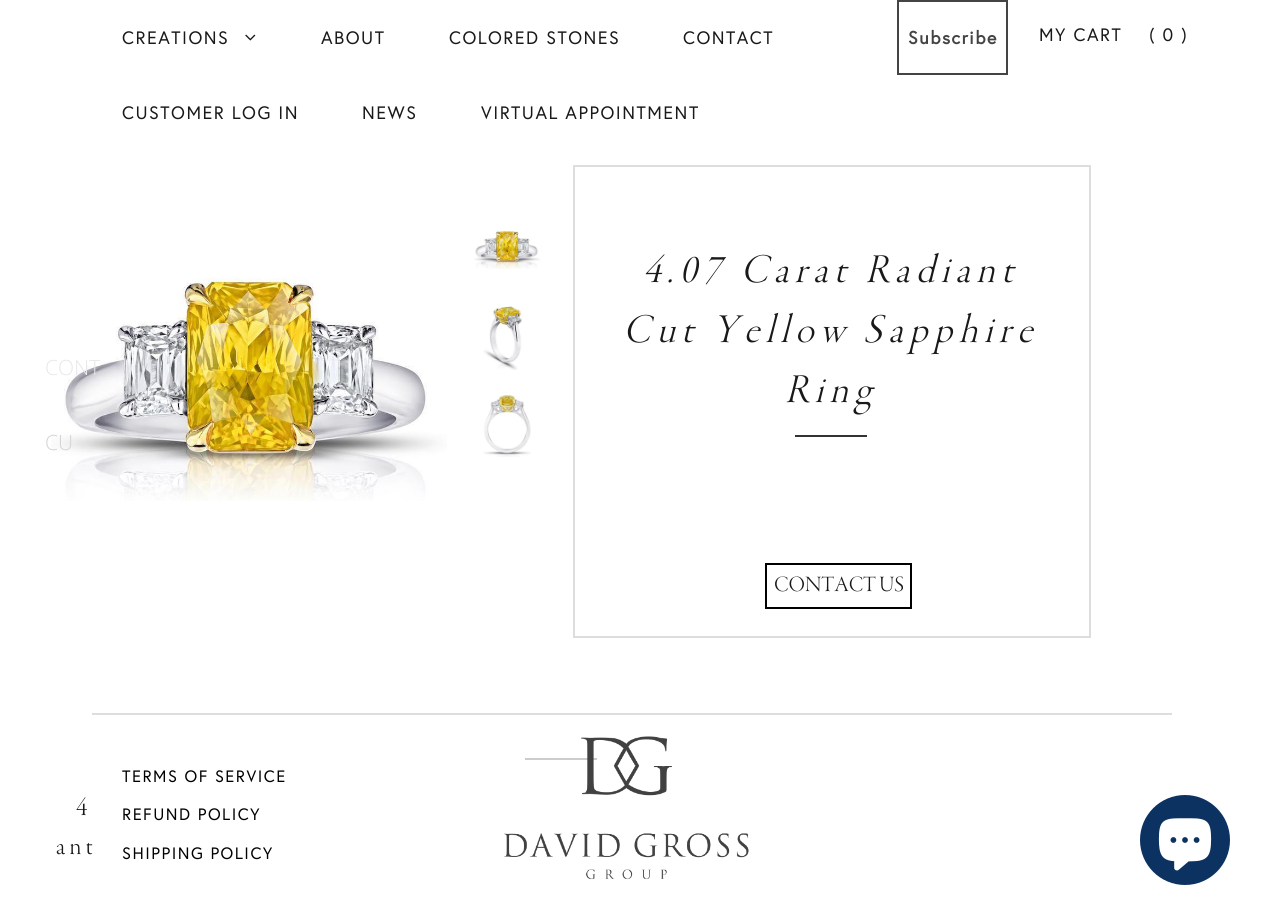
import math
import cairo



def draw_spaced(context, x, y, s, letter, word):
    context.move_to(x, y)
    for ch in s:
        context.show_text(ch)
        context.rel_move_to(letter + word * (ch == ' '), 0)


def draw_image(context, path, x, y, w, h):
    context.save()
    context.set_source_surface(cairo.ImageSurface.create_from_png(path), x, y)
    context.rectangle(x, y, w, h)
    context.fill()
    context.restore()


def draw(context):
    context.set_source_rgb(1, 1, 1)
    context.paint()
    draw_image(context, "images/1.png", 245, 34, 11, 7)
    context.rectangle(898, 1, 109, 73)
    context.set_source_rgb(68 / 255, 68 / 255, 68 / 255)
    context.stroke()
    draw_image(context, "images/2.png", 51, 278, 396, 223)
    draw_image(context, "images/3.png", 474, 230, 67, 39)
    draw_image(context, "images/4.png", 483, 306, 39, 64)
    draw_image(context, "images/5.png", 483, 395, 48, 62)
    context.rectangle(574, 166, 516, 471)
    context.set_source_rgb(221 / 255, 221 / 255, 221 / 255)
    context.stroke()
    context.set_source_rgb(51 / 255, 51 / 255, 51 / 255)
    context.rectangle(795, 435, 72, 2)
    context.fill()
    context.rectangle(766, 564, 145, 44)
    context.set_source_rgb(0, 0, 0)
    context.stroke()
    context.set_source_rgb(51 / 255, 51 / 255, 51 / 255)
    context.rectangle(525, 758, 72, 2)
    context.fill()
    context.set_source_rgb(221 / 255, 221 / 255, 221 / 255)
    context.rectangle(92, 713, 1080, 2)
    context.fill()
    context.set_source_rgb(12 / 255, 50 / 255, 97 / 255)
    context.arc(1185, 840, 45, 0, 2 * math.pi)
    context.fill()
    draw_image(context, "images/7.png", 1158, 818, 54, 53)
    context.select_font_face("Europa")
    context.set_font_size(18)
    context.set_source_rgb(25 / 255, 25 / 255, 25 / 255)
    draw_spaced(context, 122, 44, "CREATIONS", 1.5, 0)
    draw_spaced(context, 321, 44, "ABOUT", 1.5, 0)
    draw_spaced(context, 449, 44, "COLORED STONES", 1.5, 0)
    draw_spaced(context, 683, 44, "CONTACT", 1.5, 0)
    context.select_font_face("Europa", cairo.FontSlant.NORMAL, cairo.FontWeight.BOLD)
    context.set_source_rgb(68 / 255, 68 / 255, 68 / 255)
    draw_spaced(context, 908, 44, "Subscribe", 1.5, 0)
    context.select_font_face("Europa")
    context.set_source_rgb(25 / 255, 25 / 255, 25 / 255)
    draw_spaced(context, 1039, 41, "MY CART", 1.5, 0)
    draw_spaced(context, 1149, 41, "( 0 )", 1.5, 0)
    draw_spaced(context, 122, 119, "CUSTOMER LOG IN", 1.5, 0)
    draw_spaced(context, 362, 119, "NEWS", 1.5, 0)
    draw_spaced(context, 481, 119, "VIRTUAL APPOINTMENT", 1.5, 0)
    context.select_font_face("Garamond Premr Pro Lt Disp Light", cairo.FontSlant.ITALIC)
    context.set_font_size(42)
    draw_spaced(context, 643, 282, "4.07 Carat Radiant", 6.75, 0)
    draw_spaced(context, 623, 342, "Cut Yellow Sapphire", 6.75, 0)
    draw_spaced(context, 785, 402, "Ring", 6.75, 0)
    context.select_font_face("Garamond Premr Pro Lt Disp Light")
    context.set_font_size(22.5)
    context.move_to(774, 591)
    context.show_text("CONTACT US")
    context.set_font_size(27)
    draw_spaced(context, 76, 815, "4", 4.5, 0)
    draw_spaced(context, 56, 854, "ant", 4.5, 0)
    context.select_font_face("Open Sans Light")
    context.set_font_size(21)
    context.set_source_rgb(232 / 255, 231 / 255, 234 / 255)
    context.move_to(45, 375)
    context.show_text("CONT")
    context.set_source_rgb(213 / 255, 213 / 255, 213 / 255)
    context.move_to(45, 450)
    context.show_text("CU")
    context.set_source_rgba(1, 1, 1, 0.75)
    context.rectangle(92, 758, 505, 96)
    context.fill()
    context.select_font_face("Europa")
    context.set_font_size(16.5)
    context.set_source_rgb(0, 0, 0)
    draw_spaced(context, 122, 782, "TERMS OF SERVICE", 1.5, 0)
    draw_spaced(context, 122, 820, "REFUND POLICY", 1.5, 0)
    draw_spaced(context, 122, 859, "SHIPPING POLICY", 1.5, 0)
    draw_image(context, "images/6.png", 504, 736, 245, 144)


surface = cairo.ImageSurface(cairo.Format.RGB24, 1263, 916)
context = cairo.Context(surface)
options = cairo.FontOptions()
options.set_hint_metrics(cairo.HintMetrics.OFF)
options.set_hint_style(cairo.HintStyle.NONE)
context.set_font_options(options)
context.set_miter_limit(4)
draw(context)
surface.write_to_png("out.png")
